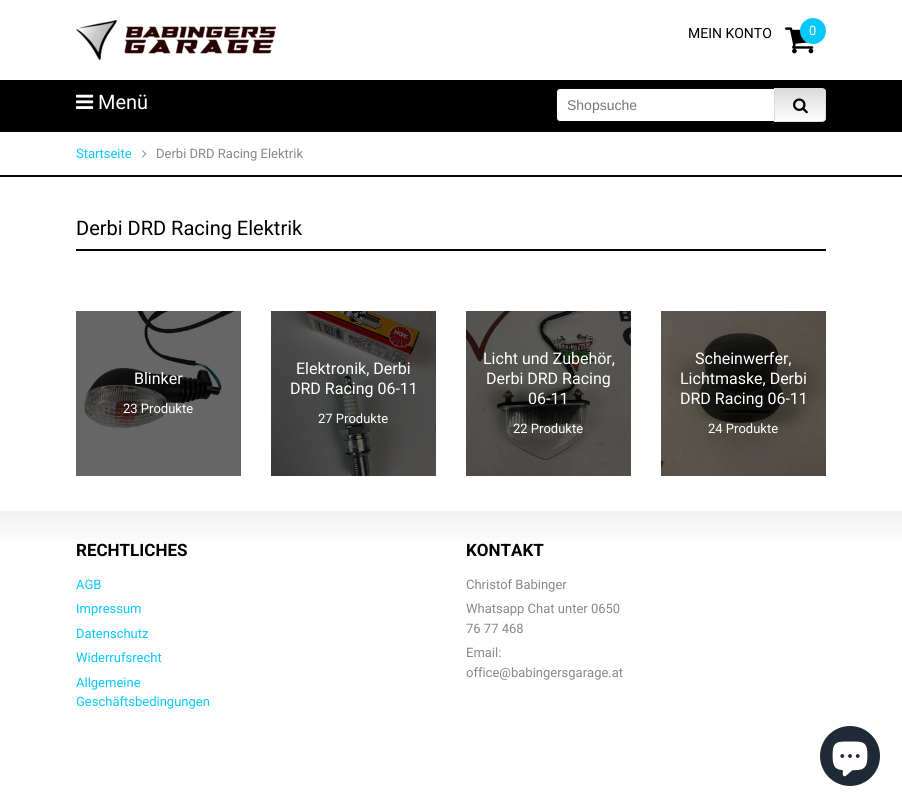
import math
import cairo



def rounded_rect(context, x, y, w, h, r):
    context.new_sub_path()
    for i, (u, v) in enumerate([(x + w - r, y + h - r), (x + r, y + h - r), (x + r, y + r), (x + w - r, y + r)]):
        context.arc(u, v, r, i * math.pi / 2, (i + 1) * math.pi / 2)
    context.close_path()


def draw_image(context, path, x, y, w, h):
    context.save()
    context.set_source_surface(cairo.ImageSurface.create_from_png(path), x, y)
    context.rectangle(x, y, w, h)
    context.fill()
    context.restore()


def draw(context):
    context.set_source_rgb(1, 1, 1)
    context.paint()
    context.set_source_rgb(5 / 255, 5 / 255, 5 / 255)
    context.rectangle(0, 130, 902, 2)
    context.fill()
    draw_image(context, "images/1.png", 76, 20, 200, 40)
    draw_image(context, "images/2.png", 785, 27, 29, 27)
    context.set_source_rgb(8 / 255, 199 / 255, 249 / 255)
    context.arc(813, 31, 13, 0, 2 * math.pi)
    context.fill()
    context.set_source_rgb(0, 0, 0)
    context.rectangle(0, 80, 902, 50)
    context.fill()
    draw_image(context, "images/3.png", 76, 94, 18, 15)
    context.set_source_rgb(1, 1, 1)
    rounded_rect(context, 556.5, 88.5, 269, 33, 3.5)
    context.fill_preserve()
    context.set_source_rgb(5 / 255, 5 / 255, 5 / 255)
    context.set_line_width(1)
    context.stroke()
    context.save()
    context.new_path()
    context.move_to(774, 88)
    context.line_to(822, 88)
    context.curve_to(824, 88, 826, 90, 826, 92)
    context.line_to(826, 118)
    context.curve_to(826, 120, 824, 122, 822, 122)
    context.line_to(774, 122)
    context.close_path()
    context.clip()
    gradient = cairo.LinearGradient(800, 89, 800, 121)
    gradient.add_color_stop_rgba(0, 219 / 255, 219 / 255, 219 / 255, 1)
    gradient.add_color_stop_rgba(1, 254 / 255, 254 / 255, 254 / 255, 1)
    context.set_source(gradient)
    context.rectangle(775, 89, 51, 32)
    context.fill()
    context.restore()
    context.new_path()
    context.move_to(774.5, 88.5)
    context.line_to(822, 88.5)
    context.curve_to(824, 88.5, 825.5, 90, 825.5, 92)
    context.line_to(825.5, 118)
    context.curve_to(825.5, 120, 824, 121.5, 822, 121.5)
    context.line_to(774.5, 121.5)
    context.close_path()
    context.set_source_rgb(219 / 255, 219 / 255, 219 / 255)
    context.stroke()
    draw_image(context, "images/4.png", 793, 98, 15, 16)
    context.set_source_rgb(5 / 255, 5 / 255, 5 / 255)
    context.rectangle(0, 175, 902, 2)
    context.fill()
    draw_image(context, "images/5.png", 142, 150, 5, 8)
    context.rectangle(76, 249, 750, 2)
    context.fill()
    draw_image(context, "images/6.png", 76, 311, 165, 165)
    draw_image(context, "images/7.png", 271, 311, 165, 165)
    draw_image(context, "images/8.png", 466, 311, 165, 165)
    draw_image(context, "images/9.png", 661, 311, 165, 165)
    gradient = cairo.LinearGradient(0, 511, 0, 551)
    gradient.add_color_stop_rgba(0, 242 / 255, 242 / 255, 242 / 255, 1)
    gradient.add_color_stop_rgba(1, 1, 1, 1, 1)
    context.set_source(gradient)
    context.rectangle(0, 511, 902, 32)
    context.fill()
    context.set_source_rgb(32 / 255, 42 / 255, 54 / 255)
    context.arc(850, 756, 30, 0, 2 * math.pi)
    context.fill()
    draw_image(context, "images/10.png", 832, 741, 36, 36)
    context.select_font_face("Roboto")
    context.set_font_size(14)
    context.set_source_rgb(0, 0, 0)
    context.move_to(688, 38)
    context.show_text("MEIN KONTO")
    context.set_font_size(13)
    context.set_source_rgb(1, 1, 1)
    context.move_to(809, 35)
    context.show_text("0")
    context.set_font_size(20)
    context.move_to(98, 109)
    context.show_text("Menü")
    context.select_font_face("Liberation Sans")
    context.set_font_size(14)
    context.set_source_rgb(117 / 255, 117 / 255, 117 / 255)
    context.move_to(567, 110)
    context.show_text("Shopsuche")
    context.select_font_face("Roboto")
    context.set_font_size(13)
    context.set_source_rgb(8 / 255, 199 / 255, 249 / 255)
    context.move_to(76, 158)
    context.show_text("Startseite")
    context.set_source_rgb(136 / 255, 136 / 255, 136 / 255)
    context.move_to(156, 158)
    context.show_text("Derbi DRD Racing Elektrik")
    context.set_font_size(20)
    context.set_source_rgb(0, 0, 0)
    context.move_to(76, 235)
    context.show_text("Derbi DRD Racing Elektrik")
    context.set_font_size(16)
    context.set_source_rgb(1, 1, 1)
    context.move_to(134, 384)
    context.show_text("Blinker")
    context.set_font_size(13)
    context.move_to(123, 413)
    context.show_text("23 Produkte")
    context.set_font_size(16)
    context.move_to(296, 374)
    context.show_text("Elektronik, Derbi")
    context.move_to(290, 394)
    context.show_text("DRD Racing 06-11")
    context.set_font_size(13)
    context.move_to(318, 423)
    context.show_text("27 Produkte")
    context.set_font_size(16)
    context.move_to(483, 364)
    context.show_text("Licht und Zubehör,")
    context.move_to(486, 384)
    context.show_text("Derbi DRD Racing")
    context.move_to(528, 404)
    context.show_text("06-11")
    context.set_font_size(13)
    context.move_to(513, 433)
    context.show_text("22 Produkte")
    context.set_font_size(16)
    context.move_to(695, 364)
    context.show_text("Scheinwerfer,")
    context.move_to(680, 384)
    context.show_text("Lichtmaske, Derbi")
    context.move_to(680, 404)
    context.show_text("DRD Racing 06-11")
    context.set_font_size(13)
    context.move_to(708, 433)
    context.show_text("24 Produkte")
    context.select_font_face("Roboto", cairo.FontSlant.NORMAL, cairo.FontWeight.BOLD)
    context.set_font_size(17)
    context.set_source_rgb(0, 0, 0)
    context.move_to(76, 556)
    context.show_text("RECHTLICHES")
    context.select_font_face("Roboto")
    context.set_font_size(13)
    context.set_source_rgb(8 / 255, 199 / 255, 249 / 255)
    context.move_to(76, 589)
    context.show_text("AGB")
    context.move_to(76, 613)
    context.show_text("Impressum")
    context.move_to(76, 638)
    context.show_text("Datenschutz")
    context.move_to(76, 662)
    context.show_text("Widerrufsrecht")
    context.move_to(76, 687)
    context.show_text("Allgemeine")
    context.move_to(76, 706)
    context.show_text("Geschäftsbedingungen")
    context.select_font_face("Roboto", cairo.FontSlant.NORMAL, cairo.FontWeight.BOLD)
    context.set_font_size(17)
    context.set_source_rgb(0, 0, 0)
    context.move_to(466, 556)
    context.show_text("KONTAKT")
    context.select_font_face("Roboto")
    context.set_font_size(13)
    context.set_source_rgb(136 / 255, 136 / 255, 136 / 255)
    context.move_to(466, 589)
    context.show_text("Christof Babinger")
    context.move_to(466, 613)
    context.show_text("Whatsapp Chat unter 0650")
    context.move_to(466, 633)
    context.show_text("76 77 468")
    context.move_to(466, 657)
    context.show_text("Email:")
    context.move_to(466, 677)
    context.show_text("office@babingersgarage.at")


surface = cairo.ImageSurface(cairo.Format.RGB24, 902, 807)
context = cairo.Context(surface)
options = cairo.FontOptions()
options.set_hint_metrics(cairo.HintMetrics.OFF)
options.set_hint_style(cairo.HintStyle.NONE)
context.set_font_options(options)
context.set_miter_limit(4)
draw(context)
surface.write_to_png("out.png")
